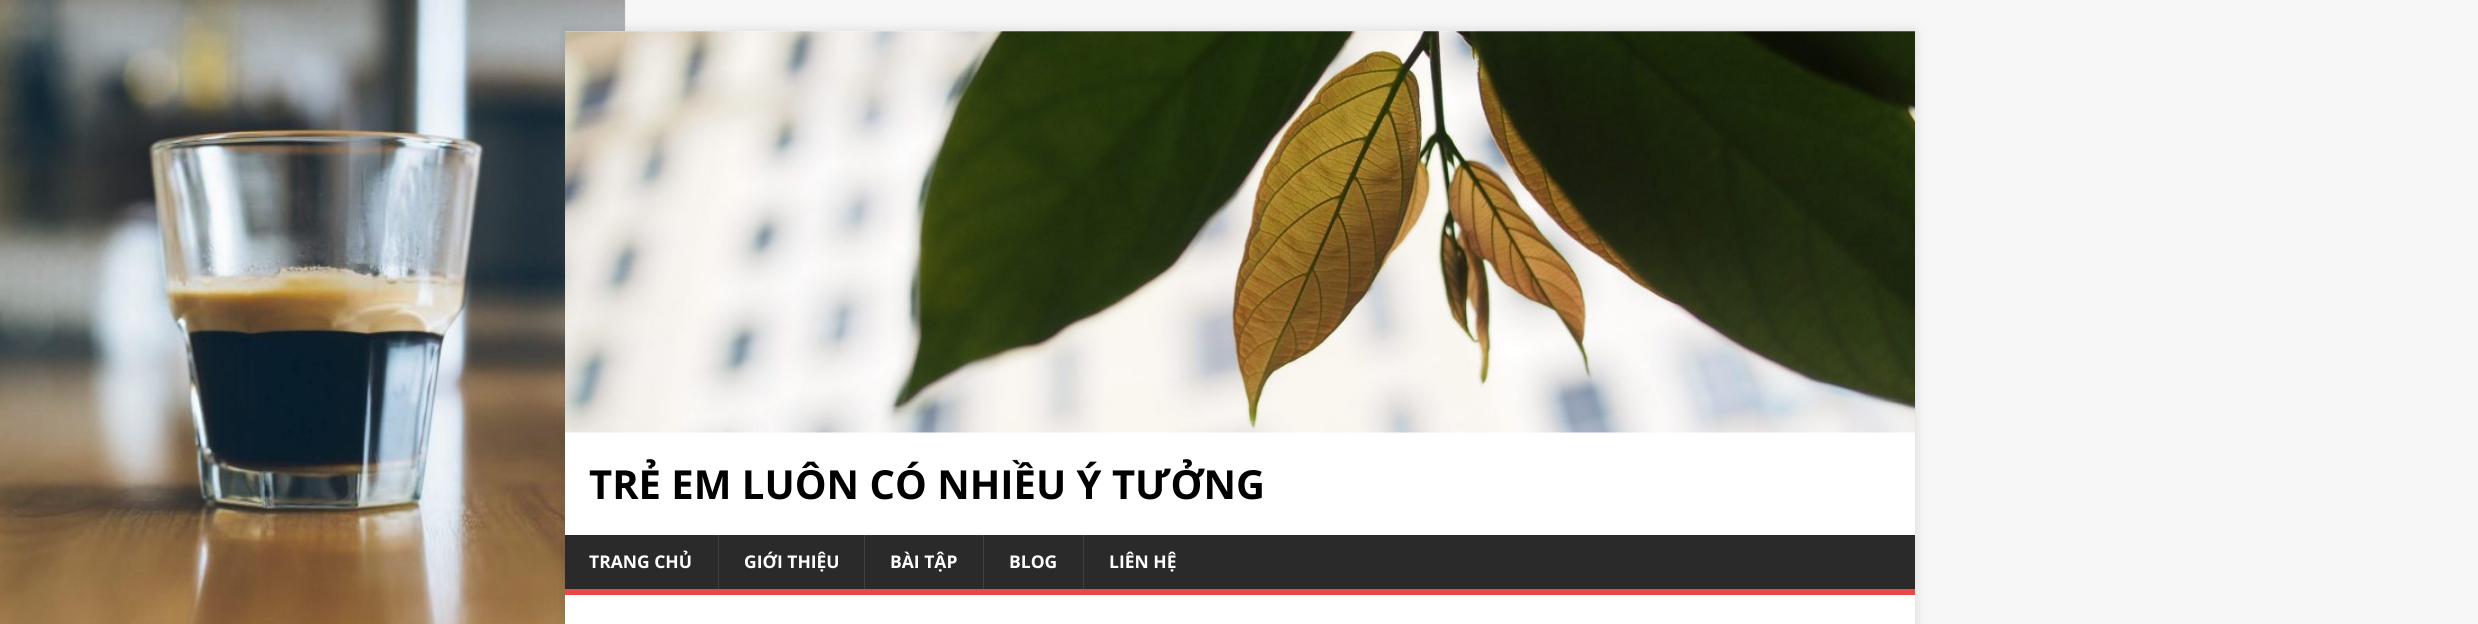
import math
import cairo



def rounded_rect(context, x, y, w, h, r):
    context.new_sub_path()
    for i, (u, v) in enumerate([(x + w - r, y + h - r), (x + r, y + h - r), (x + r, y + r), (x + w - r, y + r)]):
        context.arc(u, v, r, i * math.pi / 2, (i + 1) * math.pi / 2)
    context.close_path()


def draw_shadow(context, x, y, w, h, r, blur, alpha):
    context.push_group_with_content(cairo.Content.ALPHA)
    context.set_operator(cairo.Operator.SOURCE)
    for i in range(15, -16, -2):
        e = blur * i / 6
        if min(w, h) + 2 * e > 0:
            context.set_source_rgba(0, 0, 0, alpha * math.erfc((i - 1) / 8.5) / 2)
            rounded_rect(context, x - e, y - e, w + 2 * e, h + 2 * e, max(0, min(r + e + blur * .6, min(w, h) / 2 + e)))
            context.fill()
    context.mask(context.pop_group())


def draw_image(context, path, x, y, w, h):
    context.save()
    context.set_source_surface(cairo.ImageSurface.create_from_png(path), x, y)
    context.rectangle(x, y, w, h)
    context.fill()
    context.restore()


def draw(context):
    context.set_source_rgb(247 / 255, 247 / 255, 247 / 255)
    context.paint()
    draw_image(context, "images/1.png", 0, 0, 626, 624)
    context.set_source_rgb(50 / 255, 50 / 255, 50 / 255)
    draw_shadow(context, 565, 31, 1350, 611, 0, 6, 0.17)
    context.set_source_rgb(1, 1, 1)
    context.rectangle(565, 31, 1350, 504)
    context.fill()
    draw_image(context, "images/2.png", 565, 31, 1350, 402)
    context.set_source_rgb(42 / 255, 42 / 255, 42 / 255)
    context.rectangle(565, 535, 1350, 54)
    context.fill()
    context.set_source_rgb(230 / 255, 73 / 255, 70 / 255)
    context.rectangle(565, 589, 1350, 6)
    context.fill()
    context.set_source_rgb(63 / 255, 63 / 255, 63 / 255)
    context.rectangle(718, 535, 1, 54)
    context.fill()
    context.rectangle(864, 535, 1, 54)
    context.fill()
    context.rectangle(983, 535, 1, 54)
    context.fill()
    context.rectangle(1083, 535, 1, 54)
    context.fill()
    context.set_source_rgb(1, 1, 1)
    context.rectangle(565, 595, 1350, 29)
    context.fill()
    context.select_font_face("Open Sans", cairo.FontSlant.NORMAL, cairo.FontWeight.BOLD)
    context.set_font_size(40)
    context.set_source_rgb(0, 0, 0)
    context.move_to(589, 499)
    context.show_text("TRẺ EM LUÔN CÓ NHIỀU Ý TƯỞNG")
    context.set_font_size(17.5)
    context.set_source_rgb(1, 1, 1)
    context.move_to(589, 568)
    context.show_text("TRANG CHỦ")
    context.move_to(744, 568)
    context.show_text("GIỚI THIỆU")
    context.move_to(890, 568)
    context.show_text("BÀI TẬP")
    context.move_to(1009, 568)
    context.show_text("BLOG")
    context.move_to(1109, 568)
    context.show_text("LIÊN HỆ")


surface = cairo.ImageSurface(cairo.Format.RGB24, 2478, 624)
context = cairo.Context(surface)
options = cairo.FontOptions()
options.set_hint_metrics(cairo.HintMetrics.OFF)
options.set_hint_style(cairo.HintStyle.NONE)
context.set_font_options(options)
context.set_miter_limit(4)
draw(context)
surface.write_to_png("out.png")
